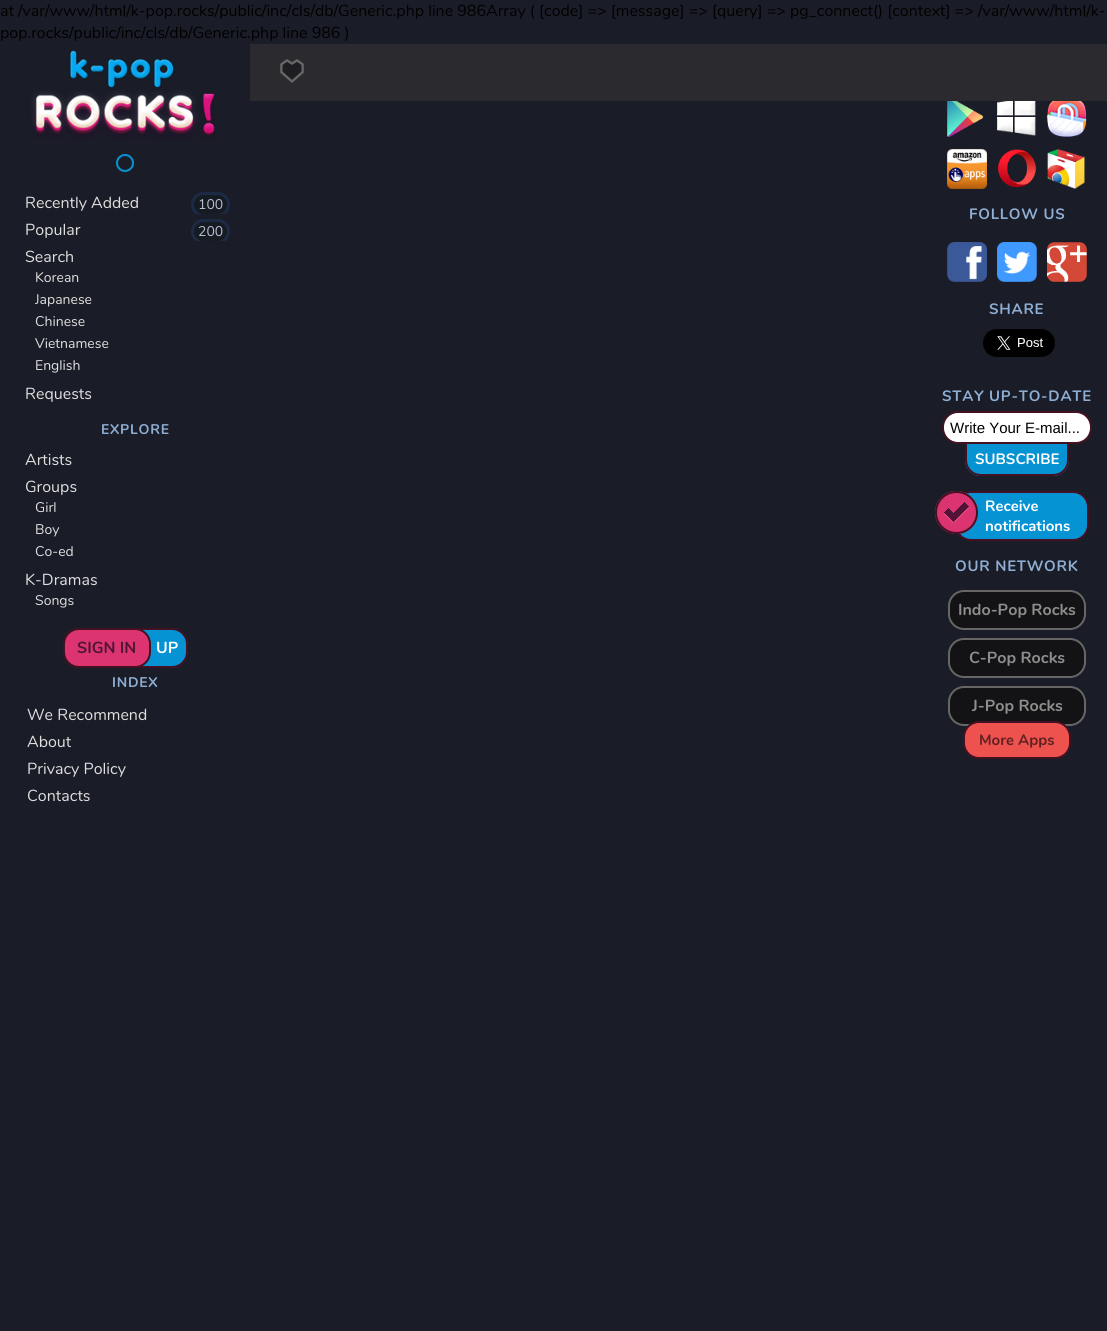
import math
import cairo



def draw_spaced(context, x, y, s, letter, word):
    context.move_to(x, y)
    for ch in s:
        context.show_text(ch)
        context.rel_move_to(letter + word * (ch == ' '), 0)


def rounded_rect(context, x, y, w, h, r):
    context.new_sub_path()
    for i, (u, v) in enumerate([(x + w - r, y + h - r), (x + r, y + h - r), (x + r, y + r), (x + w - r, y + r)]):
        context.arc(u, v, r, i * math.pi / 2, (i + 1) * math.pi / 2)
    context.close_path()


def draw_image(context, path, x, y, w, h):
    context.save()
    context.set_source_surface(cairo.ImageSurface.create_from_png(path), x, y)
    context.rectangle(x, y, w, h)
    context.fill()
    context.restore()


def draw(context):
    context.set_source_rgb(26 / 255, 29 / 255, 39 / 255)
    context.paint()
    context.set_source_rgb(42 / 255, 42 / 255, 47 / 255)
    context.rectangle(250, 44, 857, 57)
    context.fill()
    draw_image(context, "images/1.png", 280, 59, 24, 24)
    draw_image(context, "images/2.png", 31, 50, 184, 89)
    context.arc(125, 163, 8, 0, 2 * math.pi)
    context.set_source_rgb(6 / 255, 147 / 255, 212 / 255)
    context.stroke()
    context.save()
    context.rectangle(0, 187, 250, 27)
    context.clip()
    context.set_source_rgb(20 / 255, 27 / 255, 33 / 255)
    rounded_rect(context, 192.5, 193.5, 36, 22, 11)
    context.fill_preserve()
    context.set_source_rgb(28 / 255, 42 / 255, 70 / 255)
    context.set_line_width(3)
    context.stroke()
    context.restore()
    context.save()
    context.rectangle(0, 214, 250, 27)
    context.clip()
    context.set_source_rgb(20 / 255, 27 / 255, 33 / 255)
    rounded_rect(context, 192.5, 220.5, 36, 22, 11)
    context.fill_preserve()
    context.set_source_rgb(28 / 255, 42 / 255, 70 / 255)
    context.set_line_width(3)
    context.stroke()
    context.restore()
    rounded_rect(context, 96, 629, 91, 38, 15)
    context.fill_preserve()
    context.set_source_rgb(68 / 255, 17 / 255, 35 / 255)
    context.stroke()
    context.set_source_rgb(219 / 255, 52 / 255, 112 / 255)
    rounded_rect(context, 64, 629, 86, 38, 15)
    context.fill_preserve()
    context.set_source_rgb(68 / 255, 17 / 255, 35 / 255)
    context.stroke()
    draw_image(context, "images/3.png", 947, 101, 36, 36)
    draw_image(context, "images/4.png", 997, 101, 39, 35)
    draw_image(context, "images/5.png", 1047, 101, 40, 36)
    draw_image(context, "images/6.png", 947, 149, 40, 40)
    draw_image(context, "images/7.png", 997, 149, 40, 39)
    draw_image(context, "images/8.png", 1047, 149, 38, 40)
    draw_image(context, "images/9.png", 947, 242, 40, 40)
    draw_image(context, "images/10.png", 997, 242, 40, 40)
    draw_image(context, "images/11.png", 1047, 242, 40, 40)
    draw_image(context, "images/12.png", 983, 329, 72, 28)
    context.set_source_rgb(1, 1, 1)
    rounded_rect(context, 943, 412, 148, 31, 15)
    context.fill_preserve()
    context.set_source_rgb(68 / 255, 17 / 255, 35 / 255)
    context.stroke()
    context.set_source_rgb(6 / 255, 147 / 255, 212 / 255)
    context.new_path()
    context.move_to(965, 444)
    context.line_to(1069, 444)
    context.line_to(1069, 460)
    context.curve_to(1069, 469, 1062, 476, 1053, 476)
    context.line_to(981, 476)
    context.curve_to(972, 476, 965, 469, 965, 460)
    context.close_path()
    context.fill()
    context.set_source_rgb(68 / 255, 17 / 255, 35 / 255)
    context.set_fill_rule(cairo.FillRule.EVEN_ODD)
    context.new_path()
    context.move_to(965, 444)
    context.line_to(1069, 444)
    context.line_to(1069, 460)
    context.curve_to(1069, 469, 1062, 476, 1053, 476)
    context.line_to(981, 476)
    context.curve_to(972, 476, 965, 469, 965, 460)
    context.close_path()
    context.move_to(967, 444)
    context.line_to(1067, 444)
    context.line_to(1067, 460)
    context.curve_to(1067, 468, 1061, 474, 1053, 474)
    context.line_to(981, 474)
    context.curve_to(973, 474, 967, 468, 967, 460)
    context.close_path()
    context.fill()
    context.set_source_rgb(6 / 255, 147 / 255, 212 / 255)
    rounded_rect(context, 956, 492, 132, 48, 15)
    context.fill_preserve()
    context.set_source_rgb(68 / 255, 17 / 255, 35 / 255)
    context.stroke()
    context.set_source_rgb(219 / 255, 52 / 255, 112 / 255)
    context.arc(956.5, 512.5, 21.5, 0, 2 * math.pi)
    context.fill()
    draw_image(context, "images/13.png", 943, 502, 27, 22)
    context.arc(956.5, 512.5, 20.5, 0, 2 * math.pi)
    context.set_source_rgb(68 / 255, 17 / 255, 35 / 255)
    context.stroke()
    context.set_source_rgb(19 / 255, 19 / 255, 21 / 255)
    rounded_rect(context, 949, 591, 136, 38, 15)
    context.fill_preserve()
    context.set_source_rgb(102 / 255, 102 / 255, 102 / 255)
    context.stroke()
    context.set_source_rgb(19 / 255, 19 / 255, 21 / 255)
    rounded_rect(context, 949, 639, 136, 38, 15)
    context.fill_preserve()
    context.set_source_rgb(102 / 255, 102 / 255, 102 / 255)
    context.stroke()
    context.set_source_rgb(19 / 255, 19 / 255, 21 / 255)
    rounded_rect(context, 949, 687, 136, 38, 15)
    context.fill_preserve()
    context.set_source_rgb(102 / 255, 102 / 255, 102 / 255)
    context.stroke()
    context.set_source_rgb(237 / 255, 82 / 255, 79 / 255)
    rounded_rect(context, 964, 722, 106, 36, 15)
    context.fill_preserve()
    context.set_source_rgb(68 / 255, 17 / 255, 35 / 255)
    context.stroke()
    context.select_font_face("Nunito")
    context.set_font_size(16)
    context.set_source_rgb(0, 0, 0)
    context.move_to(0, 16)
    context.show_text("at /var/www/html/k-pop.rocks/public/inc/cls/db/Generic.php line 986Array ( [code] => [message] => [query] => pg_connect() [context] => /var/www/html/k-")
    context.move_to(0, 38)
    context.show_text("pop.rocks/public/inc/cls/db/Generic.php line 986 )")
    context.set_source_rgb(223 / 255, 223 / 255, 223 / 255)
    context.move_to(25, 208)
    context.show_text("Recently Added")
    context.set_font_size(14)
    context.set_source_rgb(189 / 255, 189 / 255, 211 / 255)
    context.move_to(198, 209)
    context.show_text("100")
    context.set_font_size(16)
    context.set_source_rgb(223 / 255, 223 / 255, 223 / 255)
    context.move_to(25, 235)
    context.show_text("Popular")
    context.set_font_size(14)
    context.set_source_rgb(189 / 255, 189 / 255, 211 / 255)
    context.move_to(198, 236)
    context.show_text("200")
    context.set_font_size(16)
    context.set_source_rgb(223 / 255, 223 / 255, 223 / 255)
    context.move_to(25, 262)
    context.show_text("Search")
    context.set_font_size(14)
    context.move_to(35, 282)
    context.show_text("Korean")
    context.move_to(35, 304)
    context.show_text("Japanese")
    context.move_to(35, 326)
    context.show_text("Chinese")
    context.move_to(35, 348)
    context.show_text("Vietnamese")
    context.move_to(35, 370)
    context.show_text("English")
    context.set_font_size(16)
    context.move_to(25, 399)
    context.show_text("Requests")
    context.select_font_face("Nunito", cairo.FontSlant.NORMAL, cairo.FontWeight.BOLD)
    context.set_font_size(14)
    context.set_source_rgb(143 / 255, 174 / 255, 212 / 255)
    draw_spaced(context, 101, 434, "EXPLORE", 0.75, 0)
    context.select_font_face("Nunito")
    context.set_font_size(16)
    context.set_source_rgb(223 / 255, 223 / 255, 223 / 255)
    context.move_to(25, 465)
    context.show_text("Artists")
    context.move_to(25, 492)
    context.show_text("Groups")
    context.set_font_size(14)
    context.move_to(35, 512)
    context.show_text("Girl")
    context.move_to(35, 534)
    context.show_text("Boy")
    context.move_to(35, 556)
    context.show_text("Co-ed")
    context.set_font_size(16)
    context.move_to(25, 585)
    context.show_text("K-Dramas")
    context.set_font_size(14)
    context.move_to(35, 605)
    context.show_text("Songs")
    context.select_font_face("Nunito", cairo.FontSlant.NORMAL, cairo.FontWeight.BOLD)
    context.set_font_size(16)
    context.set_source_rgb(81 / 255, 20 / 255, 54 / 255)
    context.move_to(77, 653)
    context.show_text("SIGN IN")
    context.set_source_rgb(1, 1, 1)
    context.move_to(156, 653)
    context.show_text("UP")
    context.set_font_size(14)
    context.set_source_rgb(143 / 255, 174 / 255, 212 / 255)
    draw_spaced(context, 112, 687, "INDEX", 0.75, 0)
    context.select_font_face("Nunito")
    context.set_font_size(16)
    context.set_source_rgb(223 / 255, 223 / 255, 223 / 255)
    context.move_to(27, 720)
    context.show_text("We Recommend")
    context.move_to(27, 747)
    context.show_text("About")
    context.move_to(27, 774)
    context.show_text("Privacy Policy")
    context.move_to(27, 801)
    context.show_text("Contacts")
    context.select_font_face("Nunito", cairo.FontSlant.NORMAL, cairo.FontWeight.BOLD)
    context.set_font_size(15)
    context.set_source_rgb(143 / 255, 174 / 255, 212 / 255)
    draw_spaced(context, 969, 219, "FOLLOW US", 0.75, 0)
    draw_spaced(context, 989, 314, "SHARE", 0.75, 0)
    draw_spaced(context, 942, 401, "STAY UP-TO-DATE", 0.75, 0)
    context.select_font_face("Liberation Sans")
    context.set_source_rgb(0, 0, 0)
    context.move_to(950, 433)
    context.show_text("Write Your E-mail...")
    context.select_font_face("Nunito", cairo.FontSlant.NORMAL, cairo.FontWeight.BOLD)
    context.set_source_rgb(1, 1, 1)
    context.move_to(975, 464)
    context.show_text("SUBSCRIBE")
    context.move_to(985, 511)
    context.show_text("Receive")
    context.move_to(985, 531)
    context.show_text("notifications")
    context.set_source_rgb(143 / 255, 174 / 255, 212 / 255)
    draw_spaced(context, 955, 571, "OUR NETWORK", 0.75, 0)
    context.set_font_size(16)
    context.set_source_rgb(142 / 255, 142 / 255, 142 / 255)
    context.move_to(958, 615)
    context.show_text("Indo-Pop Rocks")
    context.move_to(969, 663)
    context.show_text("C-Pop Rocks")
    context.move_to(972, 711)
    context.show_text("J-Pop Rocks")
    context.set_font_size(15)
    context.set_source_rgb(97 / 255, 33 / 255, 32 / 255)
    context.move_to(979, 745)
    context.show_text("More Apps")


surface = cairo.ImageSurface(cairo.Format.RGB24, 1107, 1331)
context = cairo.Context(surface)
options = cairo.FontOptions()
options.set_hint_metrics(cairo.HintMetrics.OFF)
options.set_hint_style(cairo.HintStyle.NONE)
context.set_font_options(options)
context.set_miter_limit(4)
draw(context)
surface.write_to_png("out.png")
